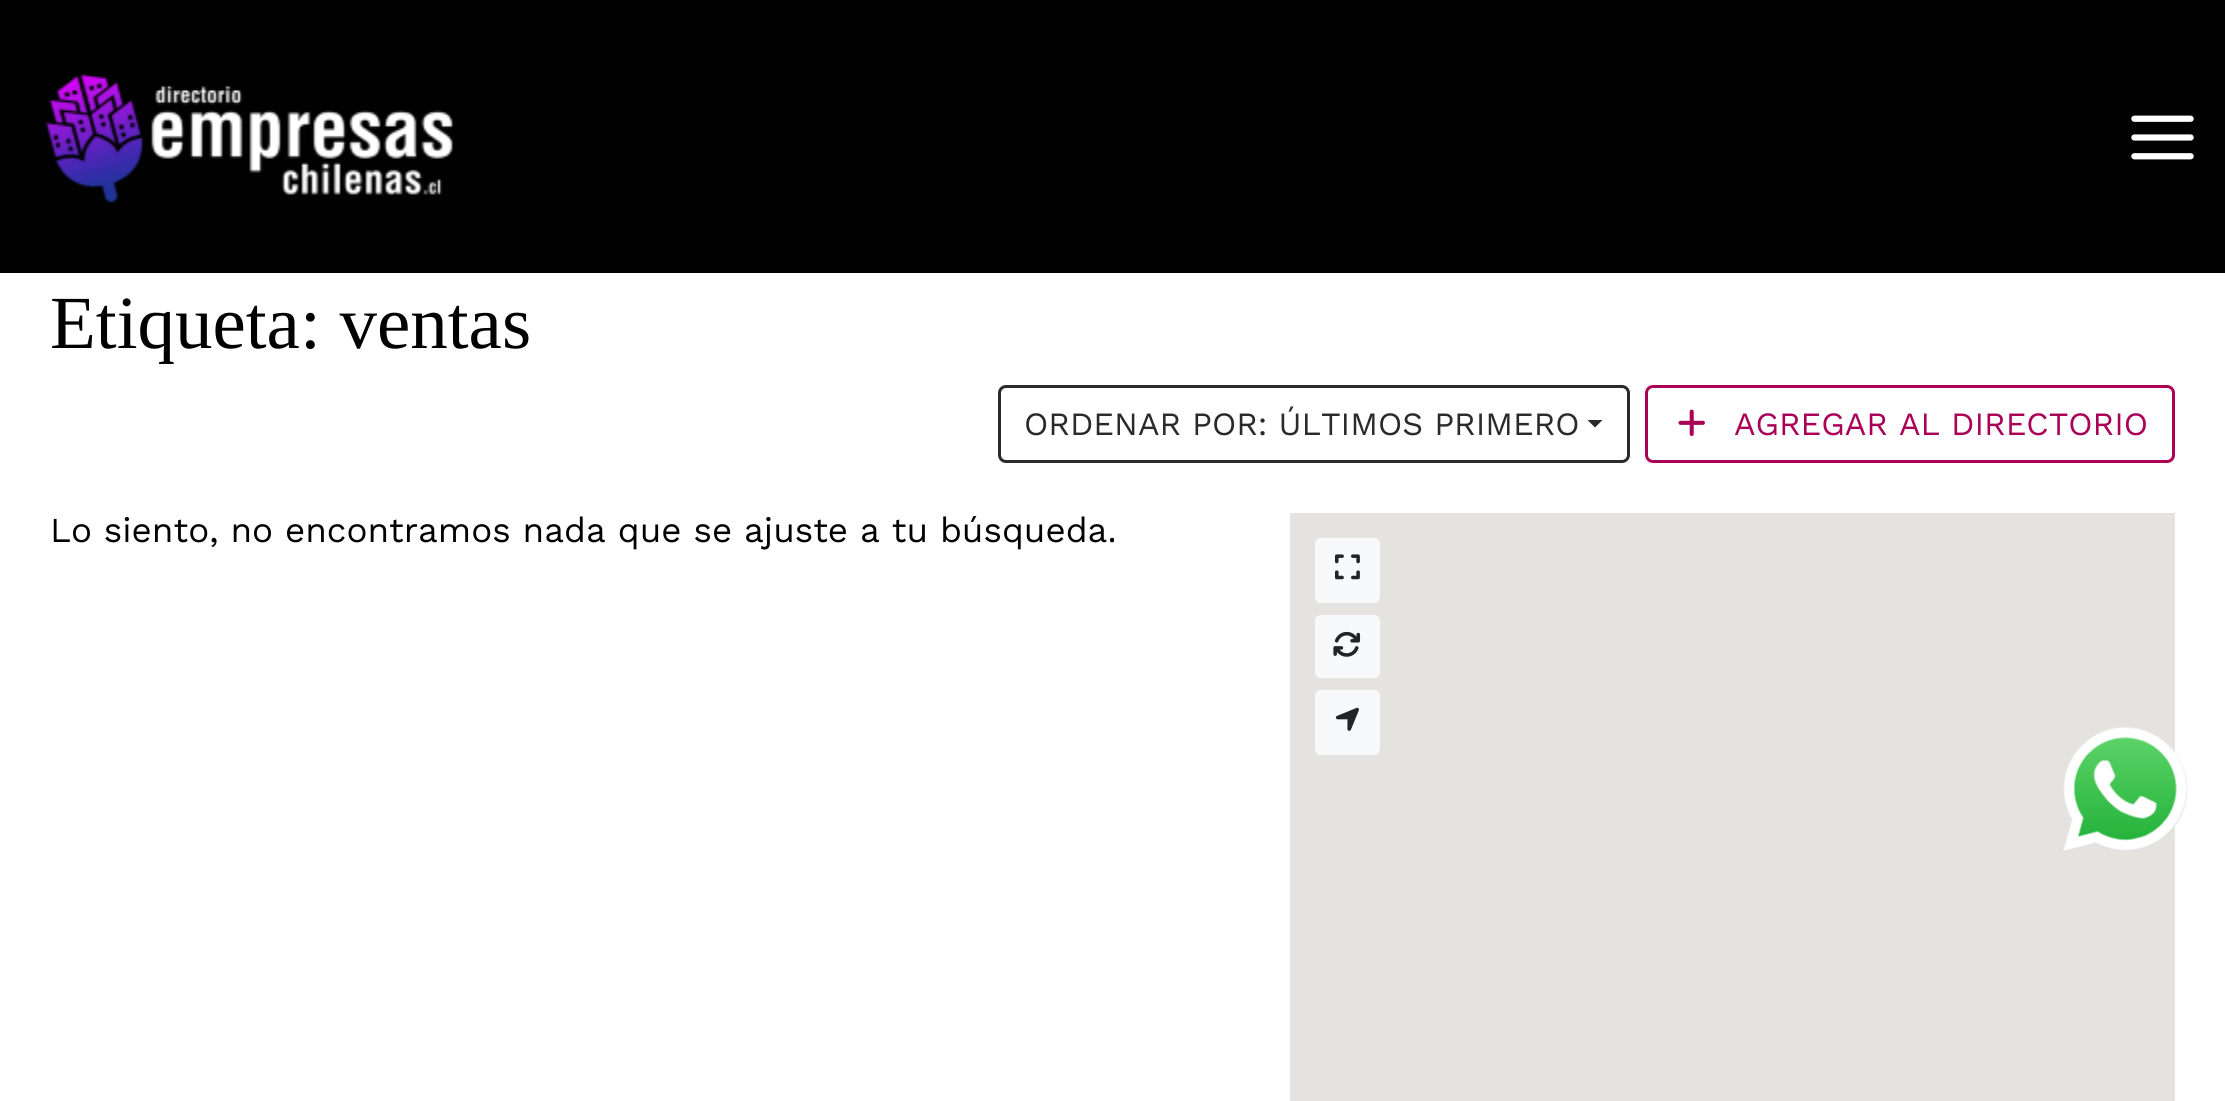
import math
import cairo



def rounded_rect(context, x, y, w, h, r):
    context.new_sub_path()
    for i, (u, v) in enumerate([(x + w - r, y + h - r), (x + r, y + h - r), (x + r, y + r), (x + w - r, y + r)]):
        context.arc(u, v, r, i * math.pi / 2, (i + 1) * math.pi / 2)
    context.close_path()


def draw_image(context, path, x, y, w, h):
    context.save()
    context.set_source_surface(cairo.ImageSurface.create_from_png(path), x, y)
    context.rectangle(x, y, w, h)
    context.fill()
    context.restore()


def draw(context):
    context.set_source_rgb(1, 1, 1)
    context.paint()
    context.set_source_rgb(1 / 255, 1 / 255, 1 / 255)
    context.rectangle(0, 0, 2225, 273)
    context.fill()
    draw_image(context, "images/1.png", 45, 74, 409, 129)
    draw_image(context, "images/2.png", 2131, 115, 63, 45)
    rounded_rect(context, 999.5, 386.5, 629, 75, 6.5)
    context.set_source_rgb(42 / 255, 42 / 255, 42 / 255)
    context.set_line_width(3)
    context.stroke()
    context.new_path()
    context.move_to(1587.5, 420)
    context.line_to(1602.5, 420)
    context.line_to(1595, 427.5)
    context.close_path()
    context.fill()
    rounded_rect(context, 1646.5, 386.5, 527, 75, 6.5)
    context.set_source_rgb(170 / 255, 0, 85 / 255)
    context.stroke()
    draw_image(context, "images/3.png", 1678, 409, 27, 27)
    context.set_source_rgb(229 / 255, 227 / 255, 223 / 255)
    context.rectangle(1290, 513, 885, 588)
    context.fill()
    context.set_source_rgb(248 / 255, 249 / 255, 250 / 255)
    rounded_rect(context, 1316.5, 539.5, 62, 62, 4.5)
    context.fill_preserve()
    context.stroke()
    draw_image(context, "images/4.png", 1335, 554, 25, 26)
    rounded_rect(context, 1316.5, 616.5, 62, 60, 4.5)
    context.fill_preserve()
    context.stroke()
    draw_image(context, "images/5.png", 1333, 631, 28, 26)
    rounded_rect(context, 1316.5, 691.5, 62, 62, 4.5)
    context.fill_preserve()
    context.stroke()
    draw_image(context, "images/6.png", 1335, 707, 24, 24)
    draw_image(context, "images/7.png", 2063, 727, 125, 125)
    context.select_font_face("Liberation Serif")
    context.set_font_size(75)
    context.set_source_rgb(0, 0, 0)
    context.move_to(50, 348)
    context.show_text("Etiqueta: ventas")
    context.select_font_face("Work Sans")
    context.set_font_size(32.5)
    context.set_source_rgb(42 / 255, 42 / 255, 42 / 255)
    context.move_to(1024, 435)
    context.show_text("ORDENAR POR: ÚLTIMOS PRIMERO")
    context.set_source_rgb(170 / 255, 0, 85 / 255)
    context.move_to(1734, 435)
    context.show_text("AGREGAR AL DIRECTORIO")
    context.set_font_size(35)
    context.set_source_rgb(0, 0, 0)
    context.move_to(50, 542)
    context.show_text("Lo siento, no encontramos nada que se ajuste a tu búsqueda.")


surface = cairo.ImageSurface(cairo.Format.RGB24, 2225, 1101)
context = cairo.Context(surface)
options = cairo.FontOptions()
options.set_hint_metrics(cairo.HintMetrics.OFF)
options.set_hint_style(cairo.HintStyle.NONE)
context.set_font_options(options)
context.set_miter_limit(4)
draw(context)
surface.write_to_png("out.png")
